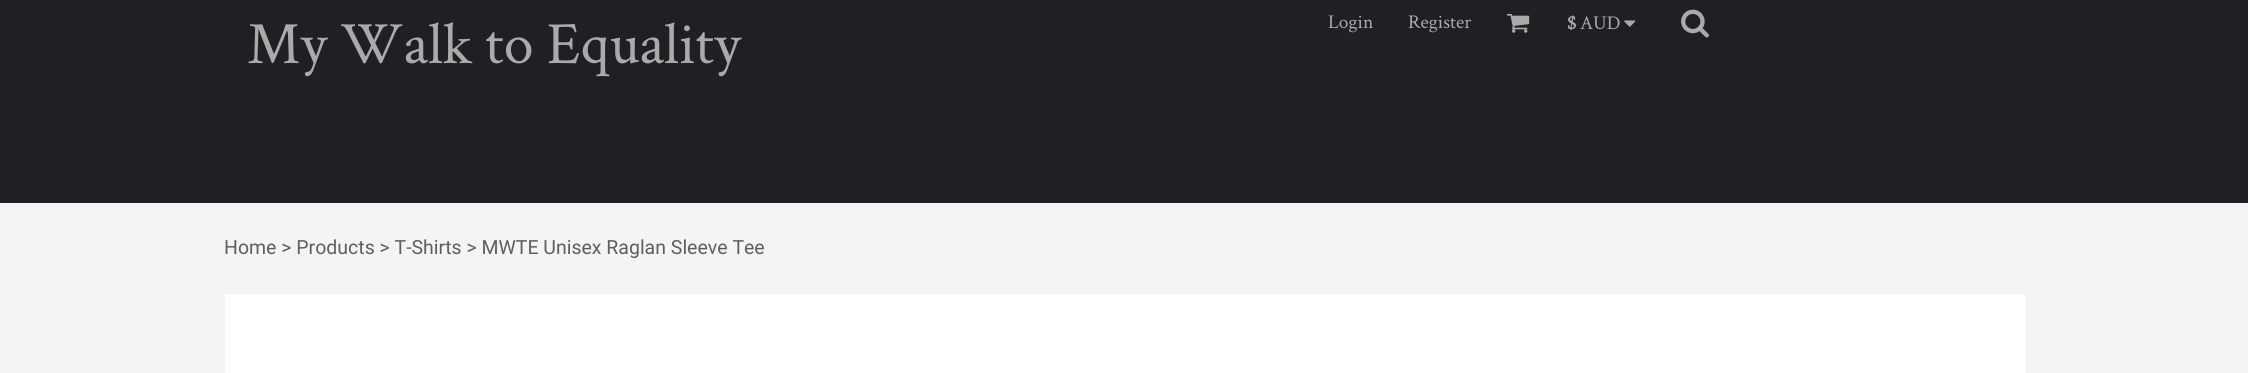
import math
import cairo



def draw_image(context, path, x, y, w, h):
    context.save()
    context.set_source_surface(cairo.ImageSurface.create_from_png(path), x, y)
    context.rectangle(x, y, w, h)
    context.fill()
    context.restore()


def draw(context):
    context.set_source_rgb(245 / 255, 244 / 255, 242 / 255)
    context.paint()
    context.set_source_rgb(30 / 255, 32 / 255, 36 / 255)
    context.rectangle(0, 0, 2248, 203)
    context.fill()
    draw_image(context, "images/1.png", 1506, 13, 24, 20)
    draw_image(context, "images/2.png", 1624, 20, 12, 7)
    draw_image(context, "images/3.png", 1681, 9, 28, 29)
    context.set_source_rgb(1, 1, 1)
    context.rectangle(225, 294, 1800, 79)
    context.fill()
    context.select_font_face("Crimson Text")
    context.set_font_size(60)
    context.set_source_rgb(170 / 255, 170 / 255, 170 / 255)
    context.move_to(247, 63)
    context.show_text("My Walk to Equality")
    context.set_font_size(19.5)
    context.move_to(1328, 28)
    context.show_text("Login")
    context.move_to(1408, 28)
    context.show_text("Register")
    context.select_font_face("Crimson Text", cairo.FontSlant.NORMAL, cairo.FontWeight.BOLD)
    context.move_to(1567, 29)
    context.show_text("$")
    context.select_font_face("Crimson Text")
    context.move_to(1580, 29)
    context.show_text("AUD")
    context.select_font_face("Roboto")
    context.set_source_rgb(94 / 255, 94 / 255, 94 / 255)
    context.move_to(224, 254)
    context.show_text("Home > Products > T-Shirts > MWTE Unisex Raglan Sleeve Tee")


surface = cairo.ImageSurface(cairo.Format.RGB24, 2248, 373)
context = cairo.Context(surface)
options = cairo.FontOptions()
options.set_hint_metrics(cairo.HintMetrics.OFF)
options.set_hint_style(cairo.HintStyle.NONE)
context.set_font_options(options)
context.set_miter_limit(4)
draw(context)
surface.write_to_png("out.png")
